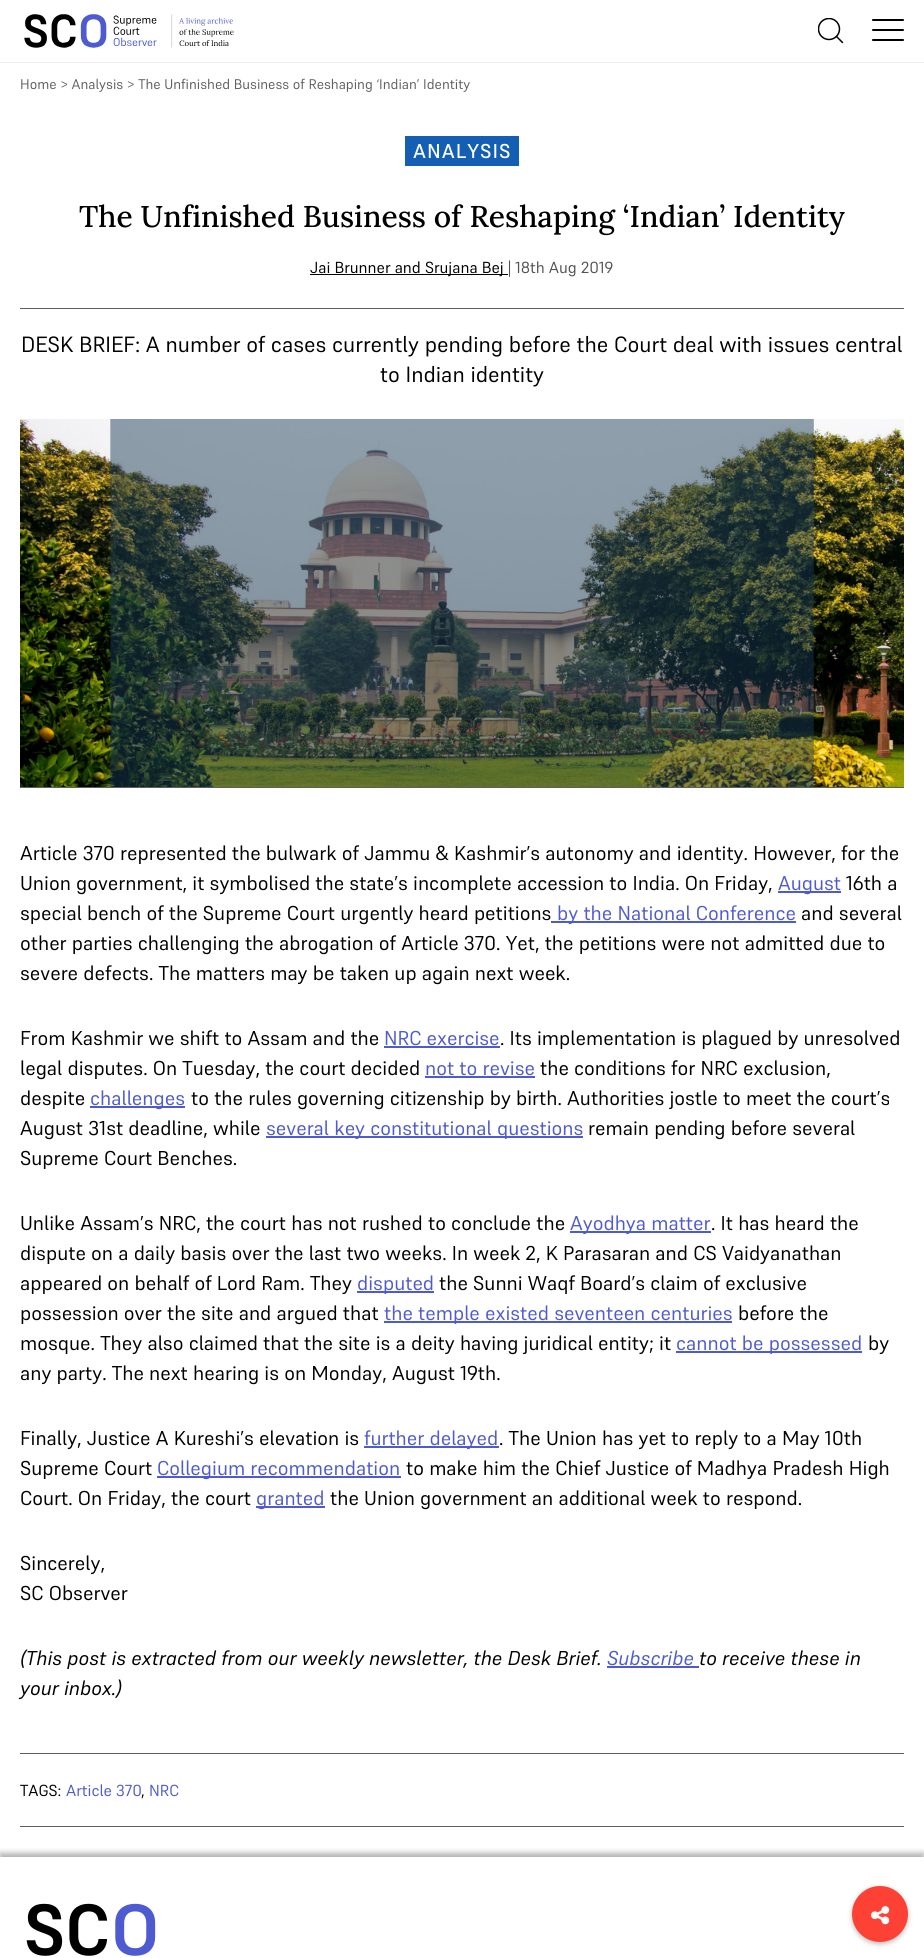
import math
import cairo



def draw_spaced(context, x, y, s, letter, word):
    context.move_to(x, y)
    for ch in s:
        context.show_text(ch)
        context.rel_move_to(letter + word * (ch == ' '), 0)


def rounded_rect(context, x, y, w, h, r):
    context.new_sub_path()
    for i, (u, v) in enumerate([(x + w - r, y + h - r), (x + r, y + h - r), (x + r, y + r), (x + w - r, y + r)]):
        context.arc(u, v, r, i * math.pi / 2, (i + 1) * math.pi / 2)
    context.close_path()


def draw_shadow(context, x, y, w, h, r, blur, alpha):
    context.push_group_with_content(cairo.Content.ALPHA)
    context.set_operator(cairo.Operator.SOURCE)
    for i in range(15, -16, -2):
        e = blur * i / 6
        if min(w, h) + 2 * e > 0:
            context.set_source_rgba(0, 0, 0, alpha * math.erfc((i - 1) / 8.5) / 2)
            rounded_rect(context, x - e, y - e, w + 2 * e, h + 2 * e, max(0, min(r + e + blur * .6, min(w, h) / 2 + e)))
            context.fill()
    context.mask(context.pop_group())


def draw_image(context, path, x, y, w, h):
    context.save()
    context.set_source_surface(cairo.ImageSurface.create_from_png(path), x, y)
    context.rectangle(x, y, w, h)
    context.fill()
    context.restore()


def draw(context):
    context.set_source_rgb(1, 1, 1)
    context.paint()
    context.set_source_rgb(237 / 255, 237 / 255, 237 / 255)
    context.rectangle(0, 62, 924, 1)
    context.fill()
    draw_image(context, "images/1.png", 24, 14, 210, 34)
    context.save()
    context.rectangle(818, 18, 26, 26)
    context.clip()
    context.arc(829, 29, 10.5, 0, 2 * math.pi)
    context.set_source_rgb(0, 0, 0)
    context.set_line_width(1.5)
    context.stroke()
    context.restore()
    context.new_path()
    context.move_to(836.5, 36.5)
    context.line_to(842.5, 42.5)
    context.set_source_rgb(0, 0, 0)
    context.set_line_width(1.5)
    context.set_line_cap(cairo.LineCap.ROUND)
    context.stroke()
    rounded_rect(context, 872, 29, 32, 2, 1)
    context.fill()
    rounded_rect(context, 872, 19, 32, 2, 1)
    context.fill()
    rounded_rect(context, 872, 39, 32, 2, 1)
    context.fill()
    context.set_source_rgb(20 / 255, 94 / 255, 180 / 255)
    context.rectangle(405, 136, 114, 30)
    context.fill()
    context.set_source_rgb(95 / 255, 95 / 255, 95 / 255)
    context.rectangle(20, 308, 884, 1)
    context.fill()
    context.set_source_rgb(0, 0, 0)
    context.rectangle(310, 274, 198, 1)
    context.fill()
    context.set_source_rgb(95 / 255, 95 / 255, 95 / 255)
    context.rectangle(20, 787, 884, 1)
    context.fill()
    draw_image(context, "images/2.png", 20, 419, 884, 368)
    context.set_source_rgb(77 / 255, 90 / 255, 208 / 255)
    context.rectangle(778, 891, 63, 2)
    context.fill()
    context.rectangle(551, 921, 245, 2)
    context.fill()
    context.rectangle(384, 1046, 116, 2)
    context.fill()
    context.rectangle(425, 1076, 110, 2)
    context.fill()
    context.rectangle(90, 1106, 95, 2)
    context.fill()
    context.rectangle(266, 1136, 317, 2)
    context.fill()
    context.rectangle(570, 1231, 141, 2)
    context.fill()
    context.rectangle(357, 1291, 77, 2)
    context.fill()
    context.rectangle(384, 1321, 348, 2)
    context.fill()
    context.rectangle(676, 1351, 186, 2)
    context.fill()
    context.rectangle(364, 1446, 135, 2)
    context.fill()
    context.rectangle(157, 1476, 244, 2)
    context.fill()
    context.rectangle(256, 1506, 69, 2)
    context.fill()
    context.rectangle(607, 1666, 92, 2)
    context.fill()
    context.set_source_rgb(95 / 255, 95 / 255, 95 / 255)
    context.rectangle(20, 1753, 884, 1)
    context.fill()
    context.rectangle(20, 1826, 884, 1)
    context.fill()
    context.set_source_rgb(0, 0, 0)
    draw_shadow(context, 852, 1888, 56, 56, 28, 2.5, 0.26)
    context.save()
    context.rectangle(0, 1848, 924, 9)
    context.clip()
    context.set_source_rgb(95 / 255, 95 / 255, 95 / 255)
    draw_shadow(context, 0, 1853, 924, 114, 0, 3, 0.5)
    context.restore()
    context.set_source_rgb(253 / 255, 66 / 255, 53 / 255)
    context.arc(880, 1914, 28, 0, 2 * math.pi)
    context.fill()
    draw_image(context, "images/3.png", 871, 1906, 19, 19)
    draw_image(context, "images/4.png", 26, 1903, 130, 53)
    context.select_font_face("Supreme")
    context.set_font_size(14)
    context.set_source_rgb(95 / 255, 95 / 255, 95 / 255)
    context.move_to(20, 89)
    context.show_text("Home > Analysis > The Unfinished Business of Reshaping ‘Indian’ Identity")
    context.select_font_face("Supreme Medium")
    context.set_font_size(20)
    context.set_source_rgb(1, 1, 1)
    draw_spaced(context, 413, 158, "ANALYSIS", 1, 0)
    context.select_font_face("Lora Medium")
    context.set_font_size(30)
    context.set_source_rgb(0, 0, 0)
    context.move_to(79, 227)
    context.show_text("The Unfinished Business of Reshaping ‘Indian’ Identity")
    context.select_font_face("Supreme")
    context.set_font_size(16)
    context.move_to(310, 273)
    context.show_text("Jai Brunner and Srujana Bej")
    context.set_source_rgb(82 / 255, 82 / 255, 82 / 255)
    context.move_to(508, 273)
    context.show_text("| 18th Aug 2019")
    context.set_font_size(22)
    context.set_source_rgb(0, 0, 0)
    context.move_to(21, 352)
    context.show_text("DESK BRIEF: A number of cases currently pending before the Court deal with issues central")
    context.move_to(380, 382)
    context.show_text("to Indian identity")
    context.set_font_size(20)
    context.move_to(20, 860)
    context.show_text("Article 370 represented the bulwark of Jammu & Kashmir’s autonomy and identity. However, for the")
    context.move_to(20, 890)
    context.show_text("Union government, it symbolised the state’s incomplete accession to India. On Friday,")
    context.set_source_rgb(77 / 255, 90 / 255, 208 / 255)
    context.move_to(778, 890)
    context.show_text("August")
    context.set_source_rgb(0, 0, 0)
    context.move_to(846, 890)
    context.show_text("16th a")
    context.move_to(20, 920)
    context.show_text("special bench of the Supreme Court urgently heard petitions")
    context.set_source_rgb(77 / 255, 90 / 255, 208 / 255)
    context.move_to(557, 920)
    context.show_text("by the National Conference")
    context.set_source_rgb(0, 0, 0)
    context.move_to(801, 920)
    context.show_text("and several")
    context.move_to(20, 950)
    context.show_text("other parties challenging the abrogation of Article 370. Yet, the petitions were not admitted due to")
    context.move_to(20, 980)
    context.show_text("severe defects. The matters may be taken up again next week.")
    context.move_to(20, 1045)
    context.show_text("From Kashmir we shift to Assam and the")
    context.set_source_rgb(77 / 255, 90 / 255, 208 / 255)
    context.move_to(384, 1045)
    context.show_text("NRC exercise")
    context.set_source_rgb(0, 0, 0)
    context.move_to(500, 1045)
    context.show_text(". Its implementation is plagued by unresolved")
    context.move_to(20, 1075)
    context.show_text("legal disputes. On Tuesday, the court decided")
    context.set_source_rgb(77 / 255, 90 / 255, 208 / 255)
    context.move_to(425, 1075)
    context.show_text("not to revise")
    context.set_source_rgb(0, 0, 0)
    context.move_to(540, 1075)
    context.show_text("the conditions for NRC exclusion,")
    context.move_to(20, 1105)
    context.show_text("despite")
    context.set_source_rgb(77 / 255, 90 / 255, 208 / 255)
    context.move_to(90, 1105)
    context.show_text("challenges")
    context.set_source_rgb(0, 0, 0)
    context.move_to(191, 1105)
    context.show_text("to the rules governing citizenship by birth. Authorities jostle to meet the court’s")
    context.move_to(20, 1135)
    context.show_text("August 31st deadline, while")
    context.set_source_rgb(77 / 255, 90 / 255, 208 / 255)
    context.move_to(266, 1135)
    context.show_text("several key constitutional questions")
    context.set_source_rgb(0, 0, 0)
    context.move_to(588, 1135)
    context.show_text("remain pending before several")
    context.move_to(20, 1165)
    context.show_text("Supreme Court Benches.")
    context.move_to(20, 1230)
    context.show_text("Unlike Assam’s NRC, the court has not rushed to conclude the")
    context.set_source_rgb(77 / 255, 90 / 255, 208 / 255)
    context.move_to(570, 1230)
    context.show_text("Ayodhya matter")
    context.set_source_rgb(0, 0, 0)
    context.move_to(711, 1230)
    context.show_text(". It has heard the")
    context.move_to(20, 1260)
    context.show_text("dispute on a daily basis over the last two weeks. In week 2, K Parasaran and CS Vaidyanathan")
    context.move_to(20, 1290)
    context.show_text("appeared on behalf of Lord Ram. They")
    context.set_source_rgb(77 / 255, 90 / 255, 208 / 255)
    context.move_to(357, 1290)
    context.show_text("disputed")
    context.set_source_rgb(0, 0, 0)
    context.move_to(439, 1290)
    context.show_text("the Sunni Waqf Board’s claim of exclusive")
    context.move_to(20, 1320)
    context.show_text("possession over the site and argued that")
    context.set_source_rgb(77 / 255, 90 / 255, 208 / 255)
    context.move_to(384, 1320)
    context.show_text("the temple existed seventeen centuries")
    context.set_source_rgb(0, 0, 0)
    context.move_to(738, 1320)
    context.show_text("before the")
    context.move_to(20, 1350)
    context.show_text("mosque. They also claimed that the site is a deity having juridical entity; it")
    context.set_source_rgb(77 / 255, 90 / 255, 208 / 255)
    context.move_to(676, 1350)
    context.show_text("cannot be possessed")
    context.set_source_rgb(0, 0, 0)
    context.move_to(868, 1350)
    context.show_text("by")
    context.move_to(20, 1380)
    context.show_text("any party. The next hearing is on Monday, August 19th.")
    context.move_to(20, 1445)
    context.show_text("Finally, Justice A Kureshi’s elevation is")
    context.set_source_rgb(77 / 255, 90 / 255, 208 / 255)
    context.move_to(364, 1445)
    context.show_text("further delayed")
    context.set_source_rgb(0, 0, 0)
    context.move_to(499, 1445)
    context.show_text(". The Union has yet to reply to a May 10th")
    context.move_to(20, 1475)
    context.show_text("Supreme Court")
    context.set_source_rgb(77 / 255, 90 / 255, 208 / 255)
    context.move_to(157, 1475)
    context.show_text("Collegium recommendation")
    context.set_source_rgb(0, 0, 0)
    context.move_to(406, 1475)
    context.show_text("to make him the Chief Justice of Madhya Pradesh High")
    context.move_to(20, 1505)
    context.show_text("Court. On Friday, the court")
    context.set_source_rgb(77 / 255, 90 / 255, 208 / 255)
    context.move_to(256, 1505)
    context.show_text("granted")
    context.set_source_rgb(0, 0, 0)
    context.move_to(330, 1505)
    context.show_text("the Union government an additional week to respond.")
    context.move_to(20, 1570)
    context.show_text("Sincerely,")
    context.move_to(20, 1600)
    context.show_text("SC Observer")
    context.select_font_face("Supreme", cairo.FontSlant.ITALIC)
    context.move_to(20, 1665)
    context.show_text("(This post is extracted from our weekly newsletter, the Desk Brief.")
    context.set_source_rgb(77 / 255, 90 / 255, 208 / 255)
    context.move_to(607, 1665)
    context.show_text("Subscribe")
    context.set_source_rgb(0, 0, 0)
    context.move_to(699, 1665)
    context.show_text("to receive these in")
    context.move_to(20, 1695)
    context.show_text("your inbox.)")
    context.select_font_face("Supreme")
    context.set_font_size(16)
    context.move_to(20, 1796)
    context.show_text("TAGS:")
    context.set_source_rgb(77 / 255, 90 / 255, 208 / 255)
    context.move_to(66, 1796)
    context.show_text("Article 370")
    context.set_source_rgb(0, 0, 0)
    context.move_to(141, 1796)
    context.show_text(",")
    context.set_source_rgb(77 / 255, 90 / 255, 208 / 255)
    context.move_to(149, 1796)
    context.show_text("NRC")


surface = cairo.ImageSurface(cairo.Format.RGB24, 924, 1958)
context = cairo.Context(surface)
options = cairo.FontOptions()
options.set_hint_metrics(cairo.HintMetrics.OFF)
options.set_hint_style(cairo.HintStyle.NONE)
context.set_font_options(options)
context.set_miter_limit(4)
draw(context)
surface.write_to_png("out.png")
